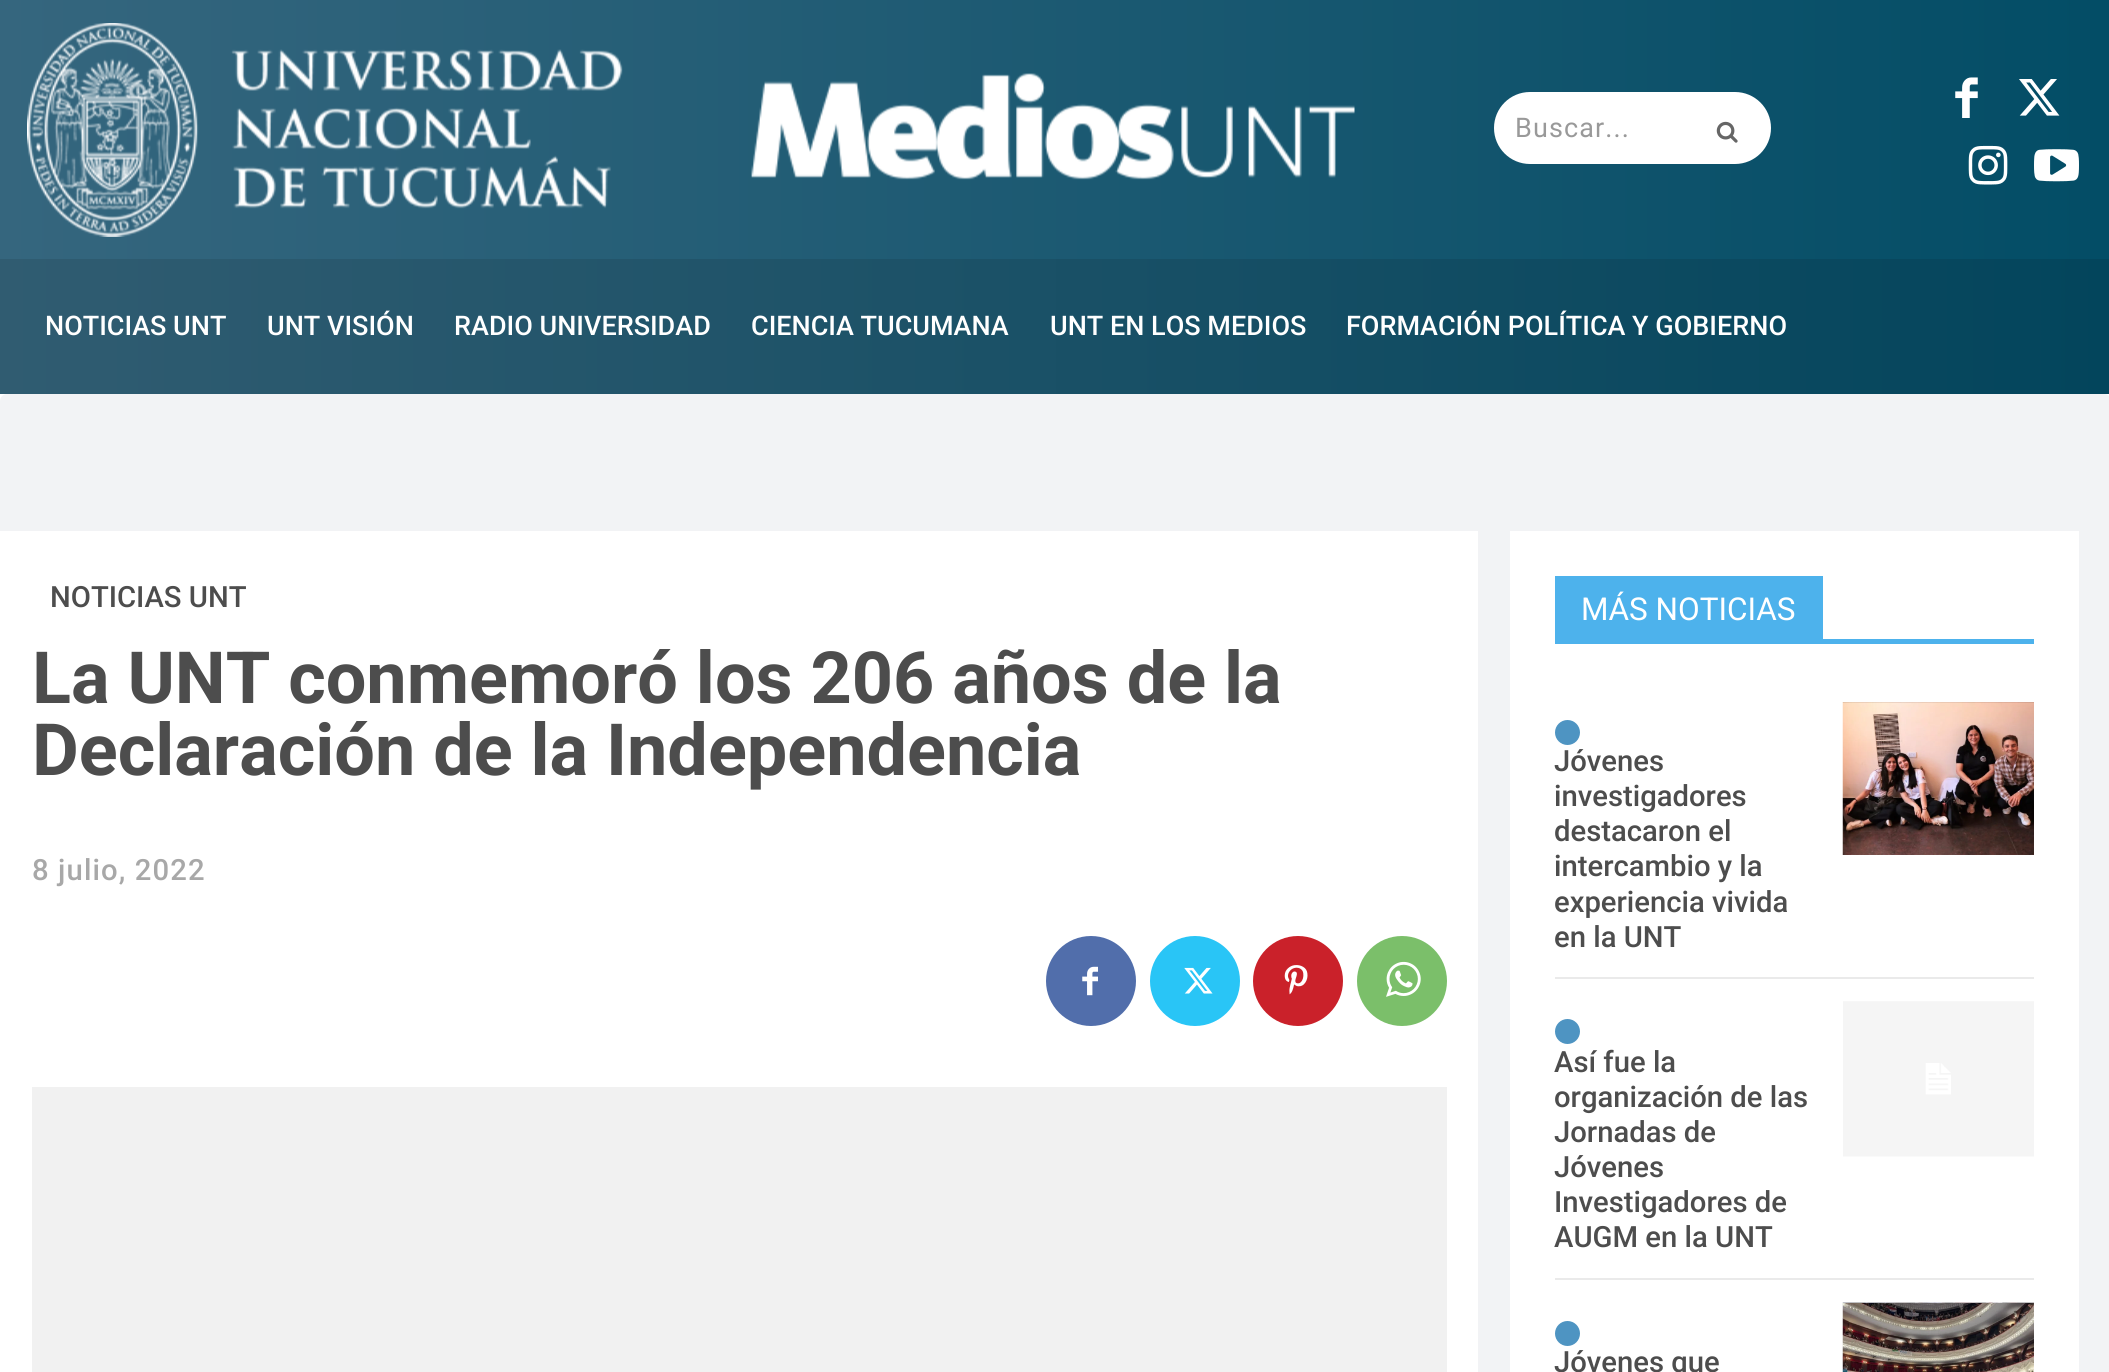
import math
import cairo



def draw_spaced(context, x, y, s, letter, word):
    context.move_to(x, y)
    for ch in s:
        context.show_text(ch)
        context.rel_move_to(letter + word * (ch == ' '), 0)


def rounded_rect(context, x, y, w, h, r):
    context.new_sub_path()
    for i, (u, v) in enumerate([(x + w - r, y + h - r), (x + r, y + h - r), (x + r, y + r), (x + w - r, y + r)]):
        context.arc(u, v, r, i * math.pi / 2, (i + 1) * math.pi / 2)
    context.close_path()


def draw_image(context, path, x, y, w, h):
    context.save()
    context.set_source_surface(cairo.ImageSurface.create_from_png(path), x, y)
    context.rectangle(x, y, w, h)
    context.fill()
    context.restore()


def draw(context):
    context.set_source_rgb(1, 1, 1)
    context.paint()
    gradient = cairo.LinearGradient(0, 197, 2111, 197)
    gradient.add_color_stop_rgba(0, 53 / 255, 102 / 255, 126 / 255, 1)
    gradient.add_color_stop_rgba(1, 3 / 255, 77 / 255, 102 / 255, 1)
    context.set_source(gradient)
    context.rectangle(0, 0, 2109, 259)
    context.fill()
    gradient = cairo.LinearGradient(0, 197, 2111, 197)
    gradient.add_color_stop_rgba(0, 48 / 255, 92 / 255, 113 / 255, 1)
    gradient.add_color_stop_rgba(1, 3 / 255, 69 / 255, 92 / 255, 1)
    context.set_source(gradient)
    context.rectangle(0, 259, 2109, 135)
    context.fill()
    draw_image(context, "images/1.png", 27, 23, 1328, 214)
    context.set_source_rgb(1, 1, 1)
    rounded_rect(context, 1494, 92, 277, 72, 36)
    context.fill()
    draw_image(context, "images/2.png", 1716, 121, 22, 22)
    draw_image(context, "images/3.png", 1955, 77, 23, 41)
    draw_image(context, "images/4.png", 2019, 79, 41, 37)
    draw_image(context, "images/5.png", 1968, 145, 40, 40)
    draw_image(context, "images/6.png", 2034, 149, 45, 33)
    context.set_source_rgb(242 / 255, 243 / 255, 245 / 255)
    rounded_rect(context, 0, 394, 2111, 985, 7)
    context.fill()
    context.set_source_rgb(1, 1, 1)
    context.rectangle(0, 531, 1478, 841)
    context.fill()
    context.set_source_rgb(81 / 255, 110 / 255, 171 / 255)
    context.arc(1091, 981, 45, 0, 2 * math.pi)
    context.fill()
    draw_image(context, "images/7.png", 1082, 966, 16, 30)
    context.set_source_rgb(41 / 255, 197 / 255, 246 / 255)
    context.arc(1195, 981, 45, 0, 2 * math.pi)
    context.fill()
    draw_image(context, "images/8.png", 1184, 967, 29, 27)
    context.set_source_rgb(202 / 255, 33 / 255, 42 / 255)
    context.arc(1298, 981, 45, 0, 2 * math.pi)
    context.fill()
    draw_image(context, "images/9.png", 1284, 965, 24, 30)
    context.set_source_rgb(123 / 255, 191 / 255, 106 / 255)
    context.arc(1402, 981, 45, 0, 2 * math.pi)
    context.fill()
    draw_image(context, "images/10.png", 1386, 961, 35, 36)
    context.set_source_rgb(241 / 255, 241 / 255, 241 / 255)
    context.rectangle(32, 1087, 1415, 285)
    context.fill()
    context.set_source_rgb(1, 1, 1)
    context.rectangle(1510, 531, 569, 841)
    context.fill()
    context.set_source_rgb(77 / 255, 178 / 255, 236 / 255)
    context.rectangle(1555, 639, 479, 5)
    context.fill()
    context.rectangle(1555, 576, 268, 63)
    context.fill()
    context.set_source_rgb(234 / 255, 234 / 255, 234 / 255)
    context.rectangle(1555, 977, 479, 2)
    context.fill()
    context.set_source_rgb(78 / 255, 148 / 255, 194 / 255)
    context.arc(1567.5, 732.5, 12.5, 0, 2 * math.pi)
    context.fill()
    draw_image(context, "images/11.png", 1842, 702, 192, 153)
    context.set_source_rgb(234 / 255, 234 / 255, 234 / 255)
    context.rectangle(1555, 1278, 479, 2)
    context.fill()
    context.set_source_rgb(78 / 255, 148 / 255, 194 / 255)
    context.arc(1567.5, 1031.5, 12.5, 0, 2 * math.pi)
    context.fill()
    draw_image(context, "images/12.png", 1843, 1001, 191, 156)
    context.arc(1567.5, 1333.5, 12.5, 0, 2 * math.pi)
    context.fill()
    draw_image(context, "images/13.png", 1842, 1302, 192, 70)
    context.select_font_face("Roboto")
    context.set_font_size(27)
    context.set_source_rgb(153 / 255, 153 / 255, 153 / 255)
    draw_spaced(context, 1515, 137, "Buscar...", 1.1, 0)
    context.select_font_face("Roboto Medium")
    context.set_source_rgb(1, 1, 1)
    context.move_to(45, 335)
    context.show_text("NOTICIAS UNT")
    context.move_to(267, 335)
    context.show_text("UNT VISIÓN")
    context.move_to(454, 335)
    context.show_text("RADIO UNIVERSIDAD")
    context.move_to(751, 335)
    context.show_text("CIENCIA TUCUMANA")
    context.move_to(1050, 335)
    context.show_text("UNT EN LOS MEDIOS")
    context.move_to(1346, 335)
    context.show_text("FORMACIÓN POLÍTICA Y GOBIERNO")
    context.set_font_size(29.25)
    context.set_source_rgb(77 / 255, 77 / 255, 77 / 255)
    context.move_to(50, 607)
    context.show_text("NOTICIAS UNT")
    context.select_font_face("Roboto", cairo.FontSlant.NORMAL, cairo.FontWeight.BOLD)
    context.set_font_size(72)
    context.move_to(32, 703)
    context.show_text("La UNT conmemoró los 206 años de la")
    context.move_to(32, 775)
    context.show_text("Declaración de la Independencia")
    context.select_font_face("Roboto Medium")
    context.set_font_size(29.25)
    context.set_source_rgb(168 / 255, 168 / 255, 168 / 255)
    draw_spaced(context, 32, 880, "8 julio, 2022", 1.1, 0)
    context.select_font_face("Roboto")
    context.set_font_size(31.5)
    context.set_source_rgb(1, 1, 1)
    context.move_to(1581, 620)
    context.show_text("MÁS NOTICIAS")
    context.select_font_face("Roboto Medium")
    context.set_font_size(29.25)
    context.set_source_rgb(77 / 255, 77 / 255, 77 / 255)
    context.move_to(1554, 771)
    context.show_text("Jóvenes")
    context.move_to(1554, 806)
    context.show_text("investigadores")
    context.move_to(1554, 841)
    context.show_text("destacaron el")
    context.move_to(1554, 876)
    context.show_text("intercambio y la")
    context.move_to(1554, 912)
    context.show_text("experiencia vivida")
    context.move_to(1554, 947)
    context.show_text("en la UNT")
    context.move_to(1554, 1072)
    context.show_text("Así fue la")
    context.move_to(1554, 1107)
    context.show_text("organización de las")
    context.move_to(1554, 1142)
    context.show_text("Jornadas de")
    context.move_to(1554, 1177)
    context.show_text("Jóvenes")
    context.move_to(1554, 1212)
    context.show_text("Investigadores de")
    context.move_to(1554, 1247)
    context.show_text("AUGM en la UNT")
    context.move_to(1554, 1372)
    context.show_text("Jóvenes que")


surface = cairo.ImageSurface(cairo.Format.RGB24, 2109, 1372)
context = cairo.Context(surface)
options = cairo.FontOptions()
options.set_hint_metrics(cairo.HintMetrics.OFF)
options.set_hint_style(cairo.HintStyle.NONE)
context.set_font_options(options)
context.set_miter_limit(4)
draw(context)
surface.write_to_png("out.png")
